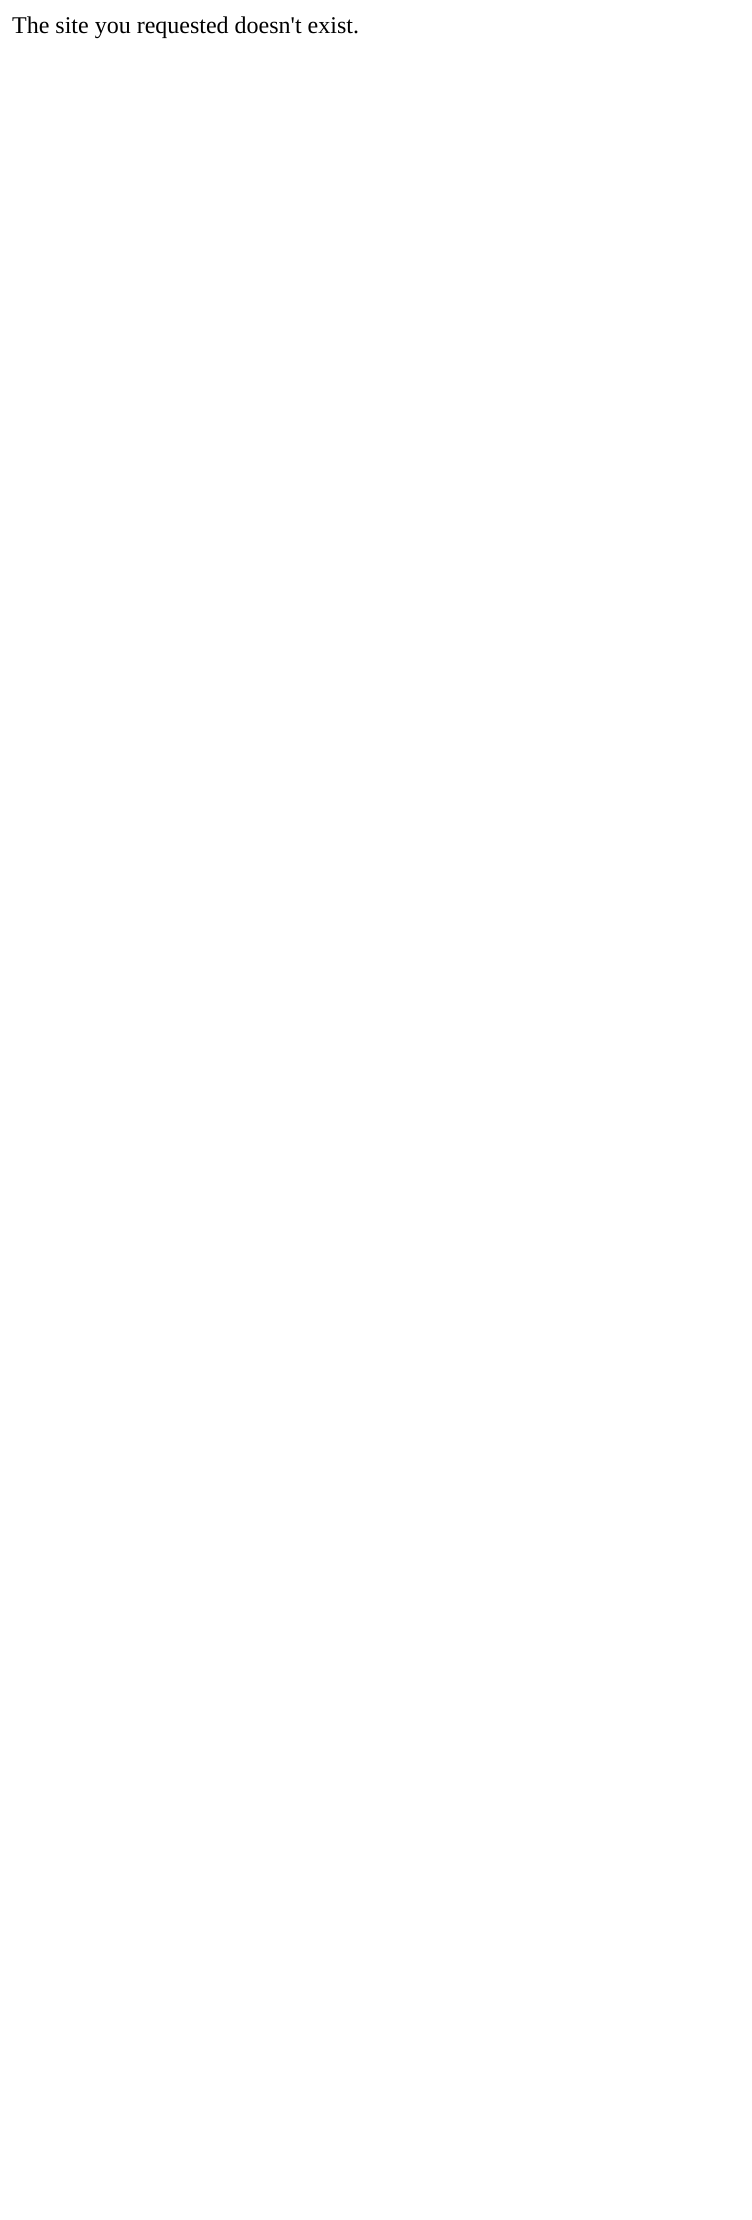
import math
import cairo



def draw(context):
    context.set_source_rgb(1, 1, 1)
    context.paint()
    context.select_font_face("Liberation Serif")
    context.set_font_size(24)
    context.set_source_rgb(0, 0, 0)
    context.move_to(12, 33)
    context.show_text("The site you requested doesn't exist.")


surface = cairo.ImageSurface(cairo.Format.RGB24, 752, 2220)
context = cairo.Context(surface)
options = cairo.FontOptions()
options.set_hint_metrics(cairo.HintMetrics.OFF)
options.set_hint_style(cairo.HintStyle.NONE)
context.set_font_options(options)
context.set_miter_limit(4)
draw(context)
surface.write_to_png("out.png")
